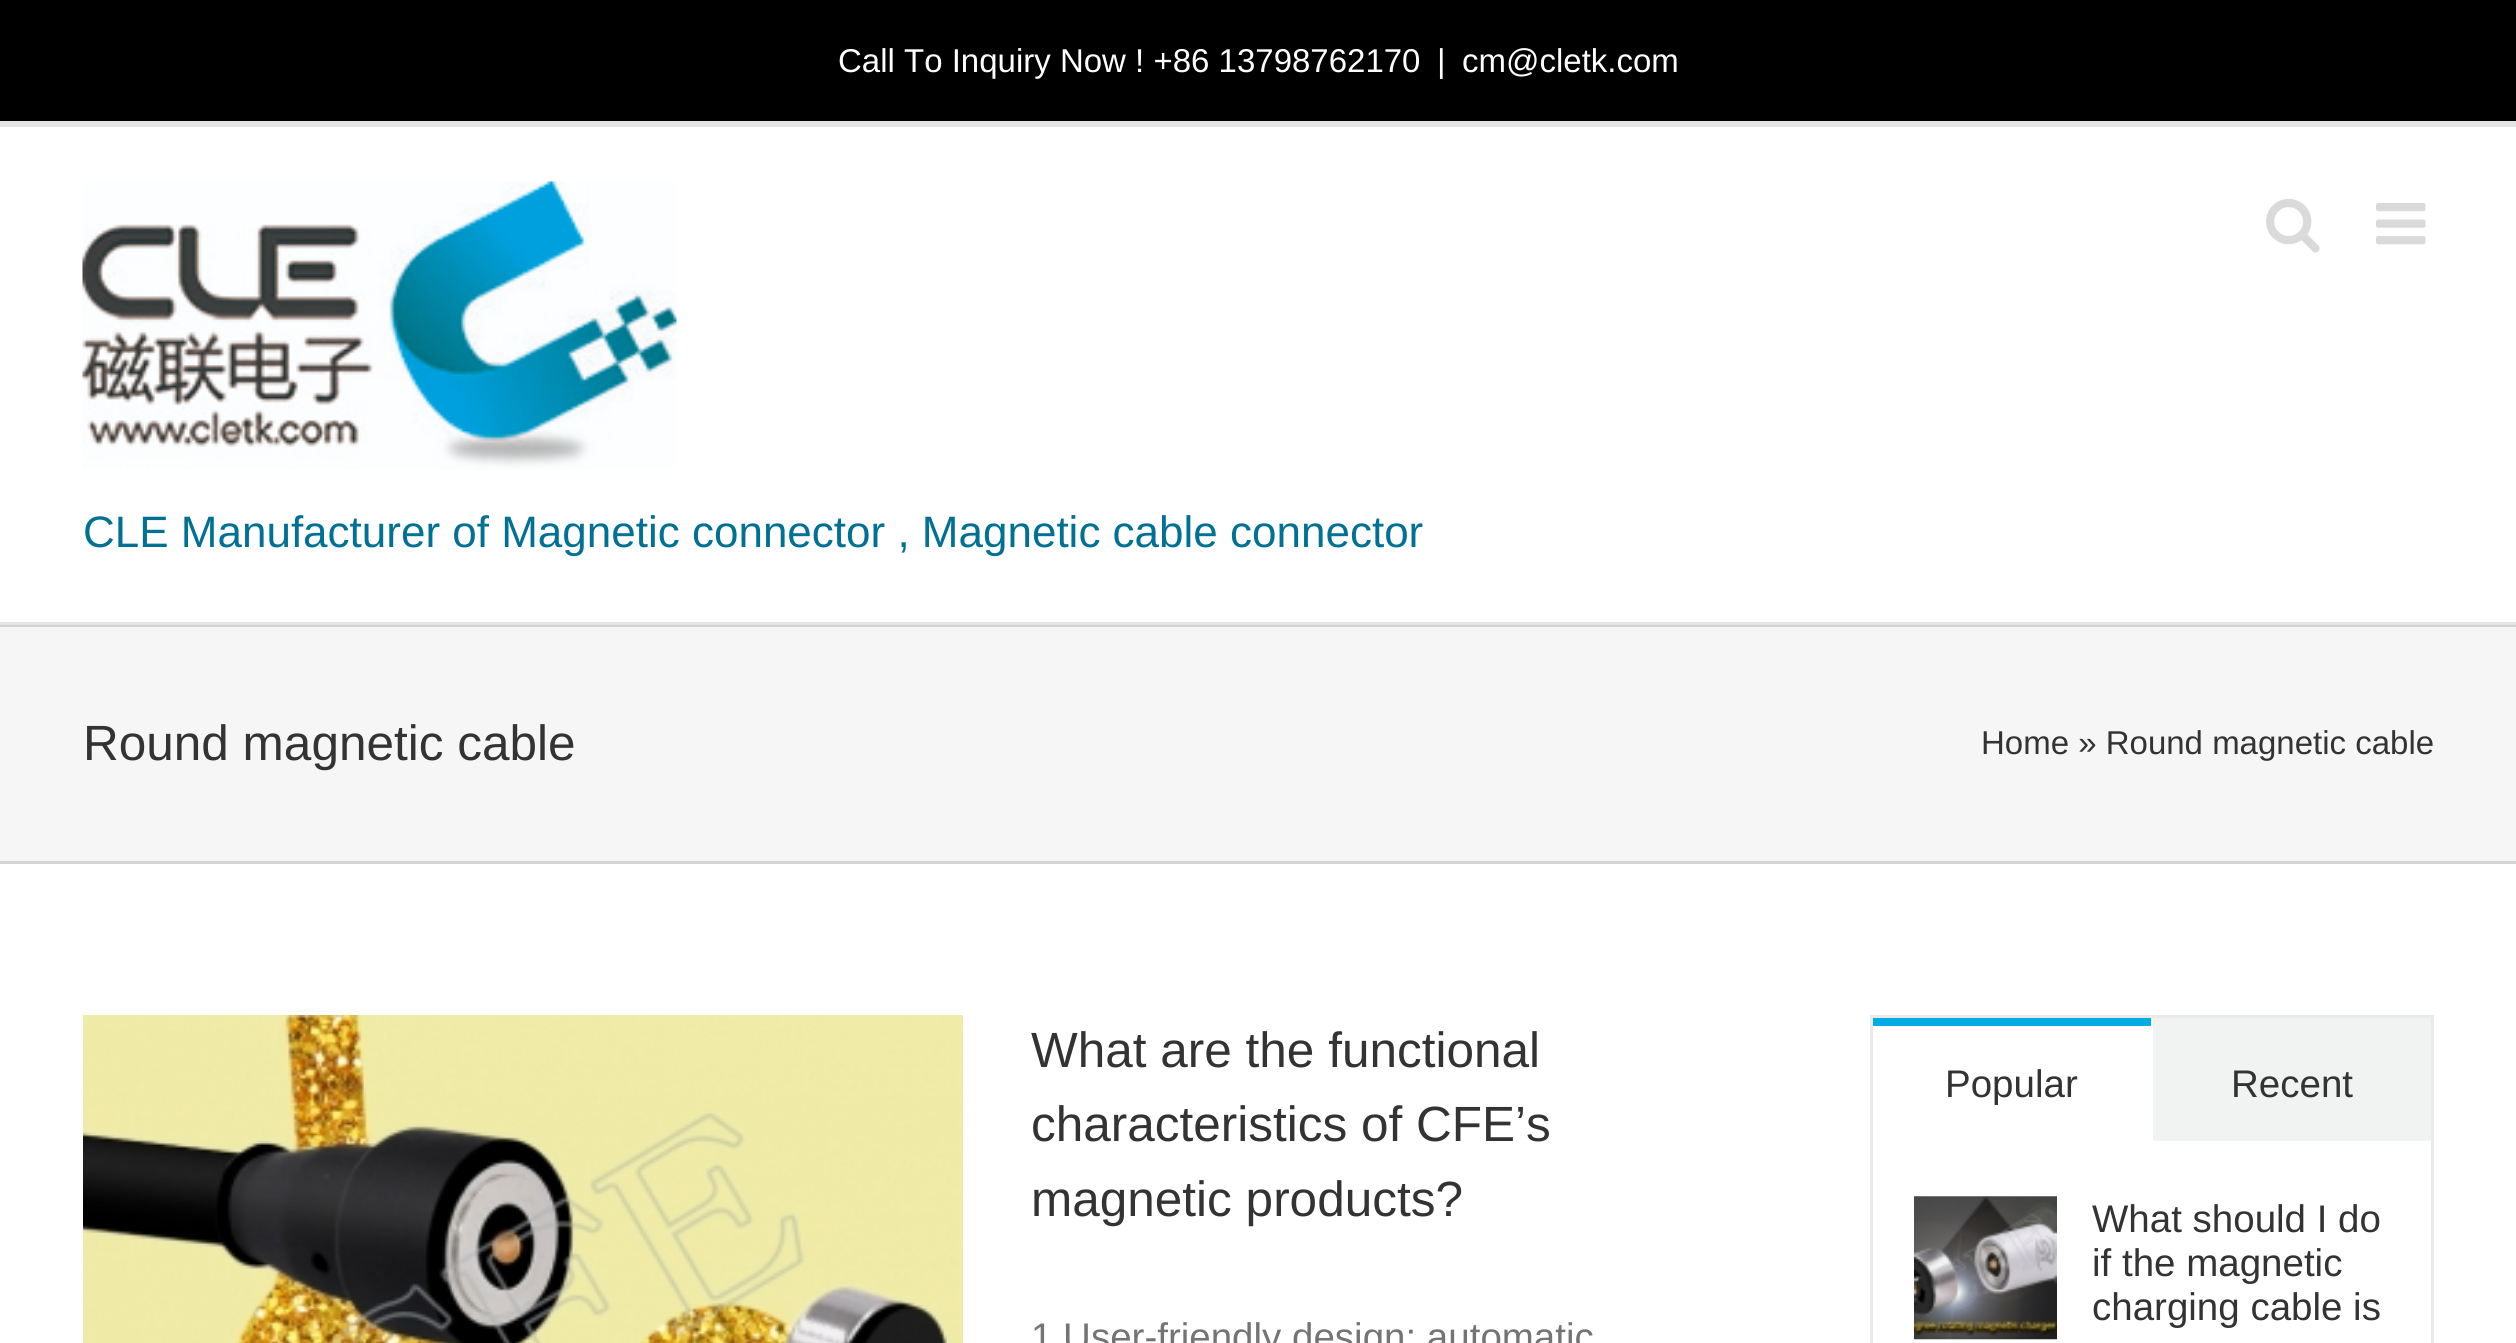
import math
import cairo



def draw_image(context, path, x, y, w, h):
    context.save()
    context.set_source_surface(cairo.ImageSurface.create_from_png(path), x, y)
    context.rectangle(x, y, w, h)
    context.fill()
    context.restore()


def draw(context):
    context.set_source_rgb(1, 1, 1)
    context.paint()
    context.set_source_rgb(0, 0, 0)
    context.rectangle(0, 0, 2516, 121)
    context.fill()
    context.set_source_rgb(229 / 255, 229 / 255, 229 / 255)
    context.rectangle(0, 121, 2516, 6)
    context.fill()
    context.rectangle(0, 622, 2516, 3)
    context.fill()
    draw_image(context, "images/1.png", 2266, 198, 54, 55)
    draw_image(context, "images/2.png", 2376, 203, 50, 42)
    draw_image(context, "images/3.png", 82, 181, 595, 289)
    context.set_source_rgb(246 / 255, 246 / 255, 246 / 255)
    context.rectangle(0, 627, 2516, 234)
    context.fill()
    context.set_source_rgb(210 / 255, 211 / 255, 212 / 255)
    context.rectangle(0, 625, 2516, 2)
    context.fill()
    context.rectangle(0, 861, 2516, 3)
    context.fill()
    draw_image(context, "images/4.png", 83, 1015, 880, 328)
    context.rectangle(1871.5, 1016.5, 561, 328)
    context.set_source_rgb(235 / 255, 234 / 255, 234 / 255)
    context.set_line_width(3)
    context.stroke()
    context.set_source_rgb(0, 172 / 255, 225 / 255)
    context.rectangle(1873, 1018, 278, 8)
    context.fill()
    context.set_source_rgb(241 / 255, 242 / 255, 242 / 255)
    context.rectangle(2153, 1018, 278, 123)
    context.fill()
    draw_image(context, "images/5.png", 1914, 1196, 143, 144)
    context.select_font_face("Liberation Sans")
    context.set_font_size(33)
    context.set_source_rgb(1, 1, 1)
    context.move_to(838, 72)
    context.show_text("Call To Inquiry Now ! +86 13798762170")
    context.move_to(1437, 72)
    context.show_text("|")
    context.move_to(1462, 72)
    context.show_text("cm@cletk.com")
    context.set_font_size(44)
    context.set_source_rgb(0, 113 / 255, 148 / 255)
    context.move_to(83, 547)
    context.show_text("CLE Manufacturer of Magnetic connector , Magnetic cable connector")
    context.set_font_size(49.5)
    context.set_source_rgb(51 / 255, 51 / 255, 51 / 255)
    context.move_to(83, 760)
    context.show_text("Round magnetic cable")
    context.set_font_size(33)
    context.move_to(1981, 754)
    context.show_text("Home » Round magnetic cable")
    context.set_font_size(49.5)
    context.move_to(1031, 1067)
    context.show_text("What are the functional")
    context.move_to(1031, 1141)
    context.show_text("characteristics of CFE’s")
    context.move_to(1031, 1216)
    context.show_text("magnetic products?")
    context.set_font_size(38.5)
    context.set_source_rgb(116 / 255, 116 / 255, 116 / 255)
    context.move_to(1031, 1350)
    context.show_text("1.User-friendly design: automatic")
    context.set_source_rgb(51 / 255, 51 / 255, 51 / 255)
    context.move_to(1945, 1097)
    context.show_text("Popular")
    context.move_to(2231, 1097)
    context.show_text("Recent")
    context.move_to(2092, 1232)
    context.show_text("What should I do")
    context.move_to(2092, 1276)
    context.show_text("if the magnetic")
    context.move_to(2092, 1320)
    context.show_text("charging cable is")


surface = cairo.ImageSurface(cairo.Format.RGB24, 2516, 1343)
context = cairo.Context(surface)
options = cairo.FontOptions()
options.set_hint_metrics(cairo.HintMetrics.OFF)
options.set_hint_style(cairo.HintStyle.NONE)
context.set_font_options(options)
context.set_miter_limit(4)
draw(context)
surface.write_to_png("out.png")
